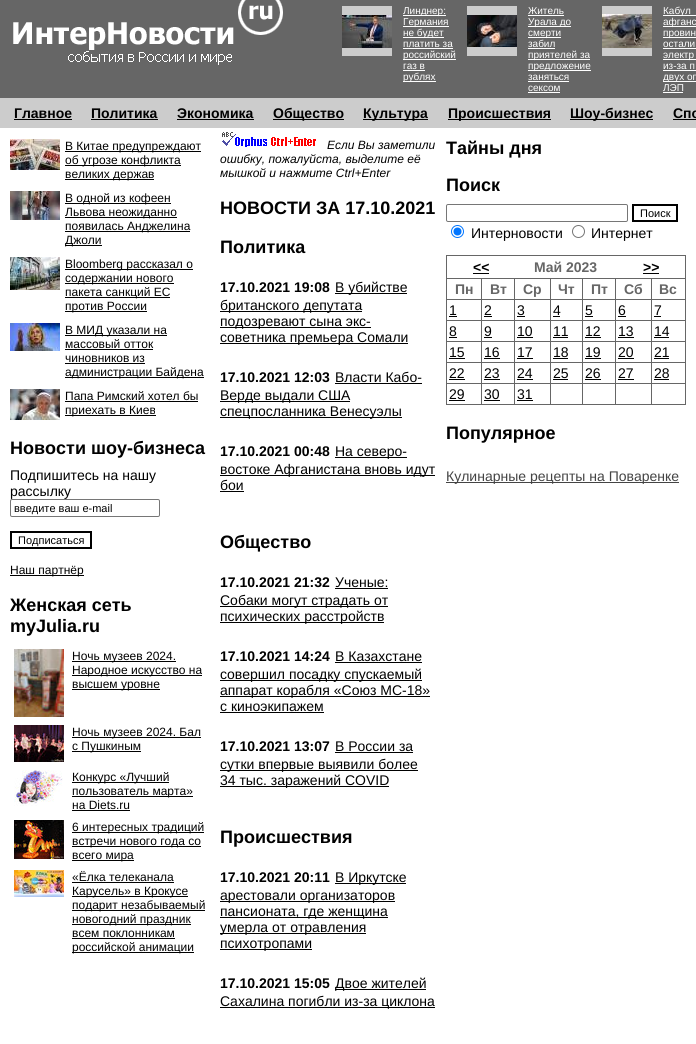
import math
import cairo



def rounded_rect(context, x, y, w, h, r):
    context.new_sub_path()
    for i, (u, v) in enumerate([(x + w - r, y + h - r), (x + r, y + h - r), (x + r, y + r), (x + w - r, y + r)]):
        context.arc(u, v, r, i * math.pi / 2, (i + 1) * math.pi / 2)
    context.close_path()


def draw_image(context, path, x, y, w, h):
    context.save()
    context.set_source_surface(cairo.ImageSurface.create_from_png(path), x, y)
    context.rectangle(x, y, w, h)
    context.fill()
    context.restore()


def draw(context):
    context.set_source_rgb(1, 1, 1)
    context.paint()
    context.set_source_rgb(102 / 255, 102 / 255, 102 / 255)
    context.rectangle(0, 0, 696, 98)
    context.fill()
    draw_image(context, "images/1.png", 13, 0, 270, 65)
    context.set_source_rgb(204 / 255, 204 / 255, 204 / 255)
    context.rectangle(342, 6, 50, 50)
    context.fill()
    draw_image(context, "images/2.png", 342, 15, 50, 33)
    context.set_source_rgb(1, 1, 1)
    context.rectangle(403, 15, 43, 1)
    context.fill()
    context.rectangle(403, 26, 46, 1)
    context.fill()
    context.rectangle(403, 37, 41, 1)
    context.fill()
    context.rectangle(403, 48, 50, 1)
    context.fill()
    context.rectangle(403, 59, 53, 1)
    context.fill()
    context.rectangle(403, 70, 22, 1)
    context.fill()
    context.rectangle(403, 81, 33, 1)
    context.fill()
    context.set_source_rgb(204 / 255, 204 / 255, 204 / 255)
    context.rectangle(467, 6, 50, 50)
    context.fill()
    draw_image(context, "images/3.png", 467, 15, 50, 32)
    context.set_source_rgb(1, 1, 1)
    context.rectangle(528, 15, 36, 1)
    context.fill()
    context.rectangle(528, 26, 43, 1)
    context.fill()
    context.rectangle(528, 37, 33, 1)
    context.fill()
    context.rectangle(528, 48, 27, 1)
    context.fill()
    context.rectangle(528, 59, 62, 1)
    context.fill()
    context.rectangle(528, 70, 63, 1)
    context.fill()
    context.rectangle(528, 81, 41, 1)
    context.fill()
    context.rectangle(528, 92, 32, 1)
    context.fill()
    context.set_source_rgb(204 / 255, 204 / 255, 204 / 255)
    context.rectangle(602, 6, 50, 50)
    context.fill()
    draw_image(context, "images/4.png", 602, 14, 50, 34)
    context.set_source_rgb(1, 1, 1)
    context.rectangle(663, 15, 33, 1)
    context.fill()
    context.rectangle(663, 26, 33, 1)
    context.fill()
    context.rectangle(663, 37, 33, 1)
    context.fill()
    context.rectangle(663, 48, 33, 1)
    context.fill()
    context.rectangle(663, 59, 33, 1)
    context.fill()
    context.rectangle(663, 70, 33, 1)
    context.fill()
    context.rectangle(663, 81, 33, 1)
    context.fill()
    context.rectangle(663, 92, 20, 1)
    context.fill()
    context.set_source_rgb(204 / 255, 204 / 255, 204 / 255)
    context.rectangle(0, 98, 696, 30)
    context.fill()
    context.set_source_rgb(0, 0, 0)
    context.rectangle(14, 119, 58, 1)
    context.fill()
    context.rectangle(91, 119, 67, 1)
    context.fill()
    context.rectangle(177, 119, 77, 1)
    context.fill()
    context.rectangle(273, 119, 71, 1)
    context.fill()
    context.rectangle(363, 119, 65, 1)
    context.fill()
    context.rectangle(448, 119, 103, 1)
    context.fill()
    context.rectangle(570, 119, 83, 1)
    context.fill()
    context.rectangle(673, 119, 23, 1)
    context.fill()
    draw_image(context, "images/5.png", 10, 139, 50, 31)
    context.rectangle(65, 151, 136, 1)
    context.fill()
    context.rectangle(65, 165, 116, 1)
    context.fill()
    context.rectangle(65, 179, 89, 1)
    context.fill()
    draw_image(context, "images/6.png", 10, 191, 50, 29)
    context.rectangle(65, 203, 106, 1)
    context.fill()
    context.rectangle(65, 217, 112, 1)
    context.fill()
    context.rectangle(65, 231, 125, 1)
    context.fill()
    context.rectangle(65, 245, 37, 1)
    context.fill()
    draw_image(context, "images/7.png", 10, 257, 50, 33)
    context.rectangle(65, 269, 128, 1)
    context.fill()
    context.rectangle(65, 283, 109, 1)
    context.fill()
    context.rectangle(65, 297, 105, 1)
    context.fill()
    context.rectangle(65, 311, 82, 1)
    context.fill()
    draw_image(context, "images/8.png", 10, 323, 50, 28)
    context.rectangle(65, 335, 102, 1)
    context.fill()
    context.rectangle(65, 349, 88, 1)
    context.fill()
    context.rectangle(65, 363, 80, 1)
    context.fill()
    context.rectangle(65, 377, 139, 1)
    context.fill()
    draw_image(context, "images/9.png", 10, 389, 50, 31)
    context.rectangle(65, 401, 133, 1)
    context.fill()
    context.rectangle(65, 415, 91, 1)
    context.fill()
    rounded_rect(context, 10.5, 499.5, 149, 17, 1.5)
    context.set_source_rgb(118 / 255, 118 / 255, 118 / 255)
    context.set_line_width(1)
    context.stroke()
    context.rectangle(11, 532, 80, 16)
    context.set_source_rgb(0, 0, 0)
    context.set_line_width(2)
    context.stroke()
    context.rectangle(10, 575, 74, 1)
    context.fill()
    draw_image(context, "images/10.png", 14, 649, 50, 68)
    context.rectangle(72, 661, 104, 1)
    context.fill()
    context.rectangle(72, 675, 130, 1)
    context.fill()
    context.rectangle(72, 689, 88, 1)
    context.fill()
    draw_image(context, "images/11.png", 14, 725, 50, 37)
    context.rectangle(72, 737, 129, 1)
    context.fill()
    context.rectangle(72, 751, 69, 1)
    context.fill()
    draw_image(context, "images/12.png", 14, 770, 49, 36)
    context.rectangle(72, 782, 97, 1)
    context.fill()
    context.rectangle(72, 796, 121, 1)
    context.fill()
    context.rectangle(72, 810, 58, 1)
    context.fill()
    draw_image(context, "images/13.png", 14, 820, 50, 39)
    context.rectangle(72, 832, 132, 1)
    context.fill()
    context.rectangle(72, 846, 129, 1)
    context.fill()
    context.rectangle(72, 860, 62, 1)
    context.fill()
    draw_image(context, "images/14.png", 14, 870, 50, 27)
    context.rectangle(72, 882, 102, 1)
    context.fill()
    context.rectangle(72, 896, 116, 1)
    context.fill()
    context.rectangle(72, 910, 133, 1)
    context.fill()
    context.rectangle(72, 924, 119, 1)
    context.fill()
    context.rectangle(72, 938, 103, 1)
    context.fill()
    context.rectangle(72, 952, 122, 1)
    context.fill()
    draw_image(context, "images/15.png", 222, 132, 94, 15)
    context.rectangle(335, 293, 72, 1)
    context.fill()
    context.rectangle(220, 311, 142, 1)
    context.fill()
    context.rectangle(220, 327, 151, 1)
    context.fill()
    context.rectangle(220, 343, 188, 1)
    context.fill()
    context.rectangle(335, 383, 87, 1)
    context.fill()
    context.rectangle(220, 401, 130, 1)
    context.fill()
    context.rectangle(220, 417, 182, 1)
    context.fill()
    context.rectangle(335, 457, 72, 1)
    context.fill()
    context.rectangle(220, 475, 215, 1)
    context.fill()
    context.rectangle(220, 491, 24, 1)
    context.fill()
    context.rectangle(335, 588, 53, 1)
    context.fill()
    context.rectangle(220, 606, 168, 1)
    context.fill()
    context.rectangle(220, 622, 164, 1)
    context.fill()
    context.rectangle(335, 662, 87, 1)
    context.fill()
    context.rectangle(220, 680, 202, 1)
    context.fill()
    context.rectangle(220, 696, 210, 1)
    context.fill()
    context.rectangle(220, 712, 104, 1)
    context.fill()
    context.rectangle(335, 752, 78, 1)
    context.fill()
    context.rectangle(220, 770, 198, 1)
    context.fill()
    context.rectangle(220, 786, 169, 1)
    context.fill()
    context.rectangle(335, 883, 71, 1)
    context.fill()
    context.rectangle(220, 901, 175, 1)
    context.fill()
    context.rectangle(220, 917, 168, 1)
    context.fill()
    context.rectangle(220, 933, 146, 1)
    context.fill()
    context.rectangle(220, 949, 92, 1)
    context.fill()
    context.rectangle(335, 989, 91, 1)
    context.fill()
    context.rectangle(220, 1007, 215, 1)
    context.fill()
    rounded_rect(context, 446.5, 204.5, 181, 17, 1.5)
    context.set_source_rgb(118 / 255, 118 / 255, 118 / 255)
    context.set_line_width(1)
    context.stroke()
    context.rectangle(633, 205, 44, 16)
    context.set_source_rgb(0, 0, 0)
    context.set_line_width(2)
    context.stroke()
    context.arc(457.5, 231.5, 6, 0, 2 * math.pi)
    context.set_source_rgb(0, 117 / 255, 1)
    context.set_line_width(1)
    context.stroke()
    context.arc(457.5, 231.5, 4, 0, 2 * math.pi)
    context.fill()
    context.arc(578.5, 231.5, 6, 0, 2 * math.pi)
    context.set_source_rgb(118 / 255, 118 / 255, 118 / 255)
    context.stroke()
    context.set_source_rgb(102 / 255, 102 / 255, 102 / 255)
    context.rectangle(446, 255, 240, 150)
    context.fill()
    context.set_source_rgb(1, 1, 1)
    context.rectangle(447, 256, 238, 22)
    context.fill()
    context.set_source_rgb(0, 0, 0)
    context.rectangle(473, 273, 16, 1)
    context.fill()
    context.rectangle(643, 273, 16, 1)
    context.fill()
    context.set_source_rgb(1, 1, 1)
    context.rectangle(447, 279, 34, 20)
    context.fill()
    context.rectangle(482, 279, 32, 20)
    context.fill()
    context.rectangle(515, 279, 35, 20)
    context.fill()
    context.rectangle(551, 279, 31, 20)
    context.fill()
    context.rectangle(583, 279, 32, 20)
    context.fill()
    context.rectangle(616, 279, 35, 20)
    context.fill()
    context.rectangle(652, 279, 33, 20)
    context.fill()
    context.rectangle(447, 300, 34, 20)
    context.fill()
    context.set_source_rgb(0, 0, 0)
    context.rectangle(449, 316, 8, 1)
    context.fill()
    context.set_source_rgb(1, 1, 1)
    context.rectangle(482, 300, 32, 20)
    context.fill()
    context.set_source_rgb(0, 0, 0)
    context.rectangle(484, 316, 8, 1)
    context.fill()
    context.set_source_rgb(1, 1, 1)
    context.rectangle(515, 300, 35, 20)
    context.fill()
    context.set_source_rgb(0, 0, 0)
    context.rectangle(517, 316, 8, 1)
    context.fill()
    context.set_source_rgb(1, 1, 1)
    context.rectangle(551, 300, 31, 20)
    context.fill()
    context.set_source_rgb(0, 0, 0)
    context.rectangle(553, 316, 7, 1)
    context.fill()
    context.set_source_rgb(1, 1, 1)
    context.rectangle(583, 300, 32, 20)
    context.fill()
    context.set_source_rgb(0, 0, 0)
    context.rectangle(585, 316, 8, 1)
    context.fill()
    context.set_source_rgb(1, 1, 1)
    context.rectangle(616, 300, 35, 20)
    context.fill()
    context.set_source_rgb(0, 0, 0)
    context.rectangle(618, 316, 8, 1)
    context.fill()
    context.set_source_rgb(1, 1, 1)
    context.rectangle(652, 300, 33, 20)
    context.fill()
    context.set_source_rgb(0, 0, 0)
    context.rectangle(654, 316, 7, 1)
    context.fill()
    context.set_source_rgb(1, 1, 1)
    context.rectangle(447, 321, 34, 20)
    context.fill()
    context.set_source_rgb(0, 0, 0)
    context.rectangle(449, 337, 8, 1)
    context.fill()
    context.set_source_rgb(1, 1, 1)
    context.rectangle(482, 321, 32, 20)
    context.fill()
    context.set_source_rgb(0, 0, 0)
    context.rectangle(484, 337, 8, 1)
    context.fill()
    context.set_source_rgb(1, 1, 1)
    context.rectangle(515, 321, 35, 20)
    context.fill()
    context.set_source_rgb(0, 0, 0)
    context.rectangle(517, 337, 16, 1)
    context.fill()
    context.set_source_rgb(1, 1, 1)
    context.rectangle(551, 321, 31, 20)
    context.fill()
    context.set_source_rgb(0, 0, 0)
    context.rectangle(553, 337, 15, 1)
    context.fill()
    context.set_source_rgb(1, 1, 1)
    context.rectangle(583, 321, 32, 20)
    context.fill()
    context.set_source_rgb(0, 0, 0)
    context.rectangle(585, 337, 16, 1)
    context.fill()
    context.set_source_rgb(1, 1, 1)
    context.rectangle(616, 321, 35, 20)
    context.fill()
    context.set_source_rgb(0, 0, 0)
    context.rectangle(618, 337, 16, 1)
    context.fill()
    context.set_source_rgb(1, 1, 1)
    context.rectangle(652, 321, 33, 20)
    context.fill()
    context.set_source_rgb(0, 0, 0)
    context.rectangle(654, 337, 15, 1)
    context.fill()
    context.set_source_rgb(1, 1, 1)
    context.rectangle(447, 342, 34, 20)
    context.fill()
    context.set_source_rgb(0, 0, 0)
    context.rectangle(449, 358, 16, 1)
    context.fill()
    context.set_source_rgb(1, 1, 1)
    context.rectangle(482, 342, 32, 20)
    context.fill()
    context.set_source_rgb(0, 0, 0)
    context.rectangle(484, 358, 16, 1)
    context.fill()
    context.set_source_rgb(1, 1, 1)
    context.rectangle(515, 342, 35, 20)
    context.fill()
    context.set_source_rgb(0, 0, 0)
    context.rectangle(517, 358, 16, 1)
    context.fill()
    context.set_source_rgb(1, 1, 1)
    context.rectangle(551, 342, 31, 20)
    context.fill()
    context.set_source_rgb(0, 0, 0)
    context.rectangle(553, 358, 15, 1)
    context.fill()
    context.set_source_rgb(1, 1, 1)
    context.rectangle(583, 342, 32, 20)
    context.fill()
    context.set_source_rgb(0, 0, 0)
    context.rectangle(585, 358, 16, 1)
    context.fill()
    context.set_source_rgb(1, 1, 1)
    context.rectangle(616, 342, 35, 20)
    context.fill()
    context.set_source_rgb(0, 0, 0)
    context.rectangle(618, 358, 16, 1)
    context.fill()
    context.set_source_rgb(1, 1, 1)
    context.rectangle(652, 342, 33, 20)
    context.fill()
    context.set_source_rgb(0, 0, 0)
    context.rectangle(654, 358, 15, 1)
    context.fill()
    context.set_source_rgb(1, 1, 1)
    context.rectangle(447, 363, 34, 20)
    context.fill()
    context.set_source_rgb(0, 0, 0)
    context.rectangle(449, 379, 16, 1)
    context.fill()
    context.set_source_rgb(1, 1, 1)
    context.rectangle(482, 363, 32, 20)
    context.fill()
    context.set_source_rgb(0, 0, 0)
    context.rectangle(484, 379, 16, 1)
    context.fill()
    context.set_source_rgb(1, 1, 1)
    context.rectangle(515, 363, 35, 20)
    context.fill()
    context.set_source_rgb(0, 0, 0)
    context.rectangle(517, 379, 16, 1)
    context.fill()
    context.set_source_rgb(1, 1, 1)
    context.rectangle(551, 363, 31, 20)
    context.fill()
    context.set_source_rgb(0, 0, 0)
    context.rectangle(553, 379, 15, 1)
    context.fill()
    context.set_source_rgb(1, 1, 1)
    context.rectangle(583, 363, 32, 20)
    context.fill()
    context.set_source_rgb(0, 0, 0)
    context.rectangle(585, 379, 16, 1)
    context.fill()
    context.set_source_rgb(1, 1, 1)
    context.rectangle(616, 363, 35, 20)
    context.fill()
    context.set_source_rgb(0, 0, 0)
    context.rectangle(618, 379, 16, 1)
    context.fill()
    context.set_source_rgb(1, 1, 1)
    context.rectangle(652, 363, 33, 20)
    context.fill()
    context.set_source_rgb(0, 0, 0)
    context.rectangle(654, 379, 15, 1)
    context.fill()
    context.set_source_rgb(1, 1, 1)
    context.rectangle(447, 384, 34, 20)
    context.fill()
    context.set_source_rgb(0, 0, 0)
    context.rectangle(449, 400, 16, 1)
    context.fill()
    context.set_source_rgb(1, 1, 1)
    context.rectangle(482, 384, 32, 20)
    context.fill()
    context.set_source_rgb(0, 0, 0)
    context.rectangle(484, 400, 16, 1)
    context.fill()
    context.set_source_rgb(1, 1, 1)
    context.rectangle(515, 384, 35, 20)
    context.fill()
    context.set_source_rgb(0, 0, 0)
    context.rectangle(517, 400, 16, 1)
    context.fill()
    context.set_source_rgb(1, 1, 1)
    context.rectangle(551, 384, 31, 20)
    context.fill()
    context.rectangle(583, 384, 32, 20)
    context.fill()
    context.rectangle(616, 384, 35, 20)
    context.fill()
    context.rectangle(652, 384, 33, 20)
    context.fill()
    context.set_source_rgb(68 / 255, 68 / 255, 68 / 255)
    context.rectangle(446, 482, 233, 1)
    context.fill()
    context.select_font_face("Liberation Sans")
    context.set_font_size(10)
    context.set_source_rgb(1, 1, 1)
    context.move_to(403, 14)
    context.show_text("Линднер:")
    context.move_to(403, 25)
    context.show_text("Германия")
    context.move_to(403, 36)
    context.show_text("не будет")
    context.move_to(403, 47)
    context.show_text("платить за")
    context.move_to(403, 58)
    context.show_text("российский")
    context.move_to(403, 69)
    context.show_text("газ в")
    context.move_to(403, 80)
    context.show_text("рублях")
    context.move_to(528, 14)
    context.show_text("Житель")
    context.move_to(528, 25)
    context.show_text("Урала до")
    context.move_to(528, 36)
    context.show_text("смерти")
    context.move_to(528, 47)
    context.show_text("забил")
    context.move_to(528, 58)
    context.show_text("приятелей за")
    context.move_to(528, 69)
    context.show_text("предложение")
    context.move_to(528, 80)
    context.show_text("заняться")
    context.move_to(528, 91)
    context.show_text("сексом")
    context.move_to(663, 14)
    context.show_text("Кабул")
    context.move_to(663, 25)
    context.show_text("афганс")
    context.move_to(663, 36)
    context.show_text("провин")
    context.move_to(663, 47)
    context.show_text("остали")
    context.move_to(663, 58)
    context.show_text("электр")
    context.move_to(663, 69)
    context.show_text("из-за п")
    context.move_to(663, 80)
    context.show_text("двух оп")
    context.move_to(663, 91)
    context.show_text("ЛЭП")
    context.select_font_face("Liberation Sans", cairo.FontSlant.NORMAL, cairo.FontWeight.BOLD)
    context.set_font_size(14)
    context.set_source_rgb(0, 0, 0)
    context.move_to(14, 118)
    context.show_text("Главное")
    context.move_to(91, 118)
    context.show_text("Политика")
    context.move_to(177, 118)
    context.show_text("Экономика")
    context.move_to(273, 118)
    context.show_text("Общество")
    context.move_to(363, 118)
    context.show_text("Культура")
    context.move_to(448, 118)
    context.show_text("Происшествия")
    context.move_to(570, 118)
    context.show_text("Шоу-бизнес")
    context.move_to(673, 118)
    context.show_text("Спо")
    context.select_font_face("Liberation Sans")
    context.set_font_size(12)
    context.move_to(65, 150)
    context.show_text("В Китае предупреждают")
    context.move_to(65, 164)
    context.show_text("об угрозе конфликта")
    context.move_to(65, 178)
    context.show_text("великих держав")
    context.move_to(65, 202)
    context.show_text("В одной из кофеен")
    context.move_to(65, 216)
    context.show_text("Львова неожиданно")
    context.move_to(65, 230)
    context.show_text("появилась Анджелина")
    context.move_to(65, 244)
    context.show_text("Джоли")
    context.move_to(65, 268)
    context.show_text("Bloomberg рассказал о")
    context.move_to(65, 282)
    context.show_text("содержании нового")
    context.move_to(65, 296)
    context.show_text("пакета санкций ЕС")
    context.move_to(65, 310)
    context.show_text("против России")
    context.move_to(65, 334)
    context.show_text("В МИД указали на")
    context.move_to(65, 348)
    context.show_text("массовый отток")
    context.move_to(65, 362)
    context.show_text("чиновников из")
    context.move_to(65, 376)
    context.show_text("администрации Байдена")
    context.move_to(65, 400)
    context.show_text("Папа Римский хотел бы")
    context.move_to(65, 414)
    context.show_text("приехать в Киев")
    context.select_font_face("Liberation Sans", cairo.FontSlant.NORMAL, cairo.FontWeight.BOLD)
    context.set_font_size(18)
    context.move_to(10, 454)
    context.show_text("Новости шоу-бизнеса")
    context.select_font_face("Liberation Sans")
    context.set_font_size(14)
    context.move_to(10, 480)
    context.show_text("Подпишитесь на нашу")
    context.move_to(10, 496)
    context.show_text("рассылку")
    context.set_font_size(11)
    context.move_to(14, 512)
    context.show_text("введите ваш e-mail")
    context.move_to(18, 544)
    context.show_text("Подписаться")
    context.set_font_size(12)
    context.move_to(10, 574)
    context.show_text("Наш партнёр")
    context.select_font_face("Liberation Sans", cairo.FontSlant.NORMAL, cairo.FontWeight.BOLD)
    context.set_font_size(18)
    context.move_to(10, 611)
    context.show_text("Женская сеть")
    context.move_to(10, 632)
    context.show_text("myJulia.ru")
    context.select_font_face("Liberation Sans")
    context.set_font_size(12)
    context.move_to(72, 660)
    context.show_text("Ночь музеев 2024.")
    context.move_to(72, 674)
    context.show_text("Народное искусство на")
    context.move_to(72, 688)
    context.show_text("высшем уровне")
    context.move_to(72, 736)
    context.show_text("Ночь музеев 2024. Бал")
    context.move_to(72, 750)
    context.show_text("с Пушкиным")
    context.move_to(72, 781)
    context.show_text("Конкурс «Лучший")
    context.move_to(72, 795)
    context.show_text("пользователь марта»")
    context.move_to(72, 809)
    context.show_text("на Diets.ru")
    context.move_to(72, 831)
    context.show_text("6 интересных традиций")
    context.move_to(72, 845)
    context.show_text("встречи нового года со")
    context.move_to(72, 859)
    context.show_text("всего мира")
    context.move_to(72, 881)
    context.show_text("«Ёлка телеканала")
    context.move_to(72, 895)
    context.show_text("Карусель» в Крокусе")
    context.move_to(72, 909)
    context.show_text("подарит незабываемый")
    context.move_to(72, 923)
    context.show_text("новогодний праздник")
    context.move_to(72, 937)
    context.show_text("всем поклонникам")
    context.move_to(72, 951)
    context.show_text("российской анимации")
    context.select_font_face("Liberation Sans", cairo.FontSlant.ITALIC)
    context.move_to(327, 149)
    context.show_text("Если Вы заметили")
    context.move_to(220, 163)
    context.show_text("ошибку, пожалуйста, выделите её")
    context.move_to(220, 177)
    context.show_text("мышкой и нажмите Ctrl+Enter")
    context.select_font_face("Liberation Sans", cairo.FontSlant.NORMAL, cairo.FontWeight.BOLD)
    context.set_font_size(18)
    context.move_to(220, 214)
    context.show_text("НОВОСТИ ЗА 17.10.2021")
    context.move_to(220, 253)
    context.show_text("Политика")
    context.set_font_size(14)
    context.move_to(220, 292)
    context.show_text("17.10.2021 19:08")
    context.select_font_face("Liberation Sans")
    context.move_to(335, 292)
    context.show_text("В убийстве")
    context.move_to(220, 310)
    context.show_text("британского депутата")
    context.move_to(220, 326)
    context.show_text("подозревают сына экс-")
    context.move_to(220, 342)
    context.show_text("советника премьера Сомали")
    context.select_font_face("Liberation Sans", cairo.FontSlant.NORMAL, cairo.FontWeight.BOLD)
    context.move_to(220, 382)
    context.show_text("17.10.2021 12:03")
    context.select_font_face("Liberation Sans")
    context.move_to(335, 382)
    context.show_text("Власти Кабо-")
    context.move_to(220, 400)
    context.show_text("Верде выдали США")
    context.move_to(220, 416)
    context.show_text("спецпосланника Венесуэлы")
    context.select_font_face("Liberation Sans", cairo.FontSlant.NORMAL, cairo.FontWeight.BOLD)
    context.move_to(220, 456)
    context.show_text("17.10.2021 00:48")
    context.select_font_face("Liberation Sans")
    context.move_to(335, 456)
    context.show_text("На северо-")
    context.move_to(220, 474)
    context.show_text("востоке Афганистана вновь идут")
    context.move_to(220, 490)
    context.show_text("бои")
    context.select_font_face("Liberation Sans", cairo.FontSlant.NORMAL, cairo.FontWeight.BOLD)
    context.set_font_size(18)
    context.move_to(220, 548)
    context.show_text("Общество")
    context.set_font_size(14)
    context.move_to(220, 587)
    context.show_text("17.10.2021 21:32")
    context.select_font_face("Liberation Sans")
    context.move_to(335, 587)
    context.show_text("Ученые:")
    context.move_to(220, 605)
    context.show_text("Собаки могут страдать от")
    context.move_to(220, 621)
    context.show_text("психических расстройств")
    context.select_font_face("Liberation Sans", cairo.FontSlant.NORMAL, cairo.FontWeight.BOLD)
    context.move_to(220, 661)
    context.show_text("17.10.2021 14:24")
    context.select_font_face("Liberation Sans")
    context.move_to(335, 661)
    context.show_text("В Казахстане")
    context.move_to(220, 679)
    context.show_text("совершил посадку спускаемый")
    context.move_to(220, 695)
    context.show_text("аппарат корабля «Союз МС-18»")
    context.move_to(220, 711)
    context.show_text("с киноэкипажем")
    context.select_font_face("Liberation Sans", cairo.FontSlant.NORMAL, cairo.FontWeight.BOLD)
    context.move_to(220, 751)
    context.show_text("17.10.2021 13:07")
    context.select_font_face("Liberation Sans")
    context.move_to(335, 751)
    context.show_text("В России за")
    context.move_to(220, 769)
    context.show_text("сутки впервые выявили более")
    context.move_to(220, 785)
    context.show_text("34 тыс. заражений COVID")
    context.select_font_face("Liberation Sans", cairo.FontSlant.NORMAL, cairo.FontWeight.BOLD)
    context.set_font_size(18)
    context.move_to(220, 843)
    context.show_text("Происшествия")
    context.set_font_size(14)
    context.move_to(220, 882)
    context.show_text("17.10.2021 20:11")
    context.select_font_face("Liberation Sans")
    context.move_to(335, 882)
    context.show_text("В Иркутске")
    context.move_to(220, 900)
    context.show_text("арестовали организаторов")
    context.move_to(220, 916)
    context.show_text("пансионата, где женщина")
    context.move_to(220, 932)
    context.show_text("умерла от отравления")
    context.move_to(220, 948)
    context.show_text("психотропами")
    context.select_font_face("Liberation Sans", cairo.FontSlant.NORMAL, cairo.FontWeight.BOLD)
    context.move_to(220, 988)
    context.show_text("17.10.2021 15:05")
    context.select_font_face("Liberation Sans")
    context.move_to(335, 988)
    context.show_text("Двое жителей")
    context.move_to(220, 1006)
    context.show_text("Сахалина погибли из-за циклона")
    context.select_font_face("Liberation Sans", cairo.FontSlant.NORMAL, cairo.FontWeight.BOLD)
    context.set_font_size(18)
    context.move_to(446, 154)
    context.show_text("Тайны дня")
    context.move_to(446, 191)
    context.show_text("Поиск")
    context.select_font_face("Liberation Sans")
    context.set_font_size(11)
    context.move_to(640, 217)
    context.show_text("Поиск")
    context.set_font_size(14)
    context.move_to(471, 238)
    context.show_text("Интерновости")
    context.move_to(591, 238)
    context.show_text("Интернет")
    context.select_font_face("Liberation Sans", cairo.FontSlant.NORMAL, cairo.FontWeight.BOLD)
    context.move_to(473, 272)
    context.show_text("<<")
    context.set_source_rgb(102 / 255, 102 / 255, 102 / 255)
    context.move_to(534, 272)
    context.show_text("Май 2023")
    context.set_source_rgb(0, 0, 0)
    context.move_to(643, 272)
    context.show_text(">>")
    context.set_source_rgb(102 / 255, 102 / 255, 102 / 255)
    context.move_to(455, 294)
    context.show_text("Пн")
    context.move_to(490, 294)
    context.show_text("Вт")
    context.move_to(523, 294)
    context.show_text("Ср")
    context.move_to(558, 294)
    context.show_text("Чт")
    context.move_to(591, 294)
    context.show_text("Пт")
    context.move_to(624, 294)
    context.show_text("Сб")
    context.move_to(659, 294)
    context.show_text("Вс")
    context.select_font_face("Liberation Sans")
    context.set_source_rgb(0, 0, 0)
    context.move_to(449, 315)
    context.show_text("1")
    context.move_to(484, 315)
    context.show_text("2")
    context.move_to(517, 315)
    context.show_text("3")
    context.move_to(553, 315)
    context.show_text("4")
    context.move_to(585, 315)
    context.show_text("5")
    context.move_to(618, 315)
    context.show_text("6")
    context.move_to(654, 315)
    context.show_text("7")
    context.move_to(449, 336)
    context.show_text("8")
    context.move_to(484, 336)
    context.show_text("9")
    context.move_to(517, 336)
    context.show_text("10")
    context.move_to(553, 336)
    context.show_text("11")
    context.move_to(585, 336)
    context.show_text("12")
    context.move_to(618, 336)
    context.show_text("13")
    context.move_to(654, 336)
    context.show_text("14")
    context.move_to(449, 357)
    context.show_text("15")
    context.move_to(484, 357)
    context.show_text("16")
    context.move_to(517, 357)
    context.show_text("17")
    context.move_to(553, 357)
    context.show_text("18")
    context.move_to(585, 357)
    context.show_text("19")
    context.move_to(618, 357)
    context.show_text("20")
    context.move_to(654, 357)
    context.show_text("21")
    context.move_to(449, 378)
    context.show_text("22")
    context.move_to(484, 378)
    context.show_text("23")
    context.move_to(517, 378)
    context.show_text("24")
    context.move_to(553, 378)
    context.show_text("25")
    context.move_to(585, 378)
    context.show_text("26")
    context.move_to(618, 378)
    context.show_text("27")
    context.move_to(654, 378)
    context.show_text("28")
    context.move_to(449, 399)
    context.show_text("29")
    context.move_to(484, 399)
    context.show_text("30")
    context.move_to(517, 399)
    context.show_text("31")
    context.select_font_face("Liberation Sans", cairo.FontSlant.NORMAL, cairo.FontWeight.BOLD)
    context.set_font_size(18)
    context.move_to(446, 439)
    context.show_text("Популярное")
    context.select_font_face("Liberation Sans")
    context.set_font_size(14)
    context.set_source_rgb(68 / 255, 68 / 255, 68 / 255)
    context.move_to(446, 481)
    context.show_text("Кулинарные рецепты на Поваренке")


surface = cairo.ImageSurface(cairo.Format.RGB24, 696, 1044)
context = cairo.Context(surface)
options = cairo.FontOptions()
options.set_hint_metrics(cairo.HintMetrics.OFF)
options.set_hint_style(cairo.HintStyle.NONE)
context.set_font_options(options)
context.set_miter_limit(4)
draw(context)
surface.write_to_png("out.png")
